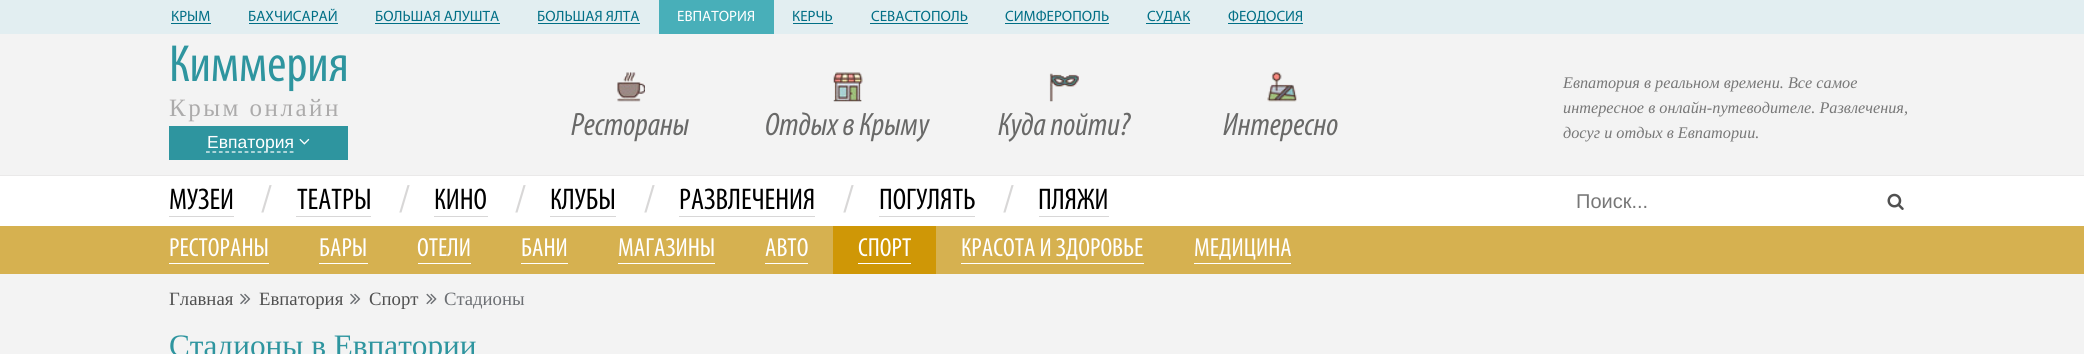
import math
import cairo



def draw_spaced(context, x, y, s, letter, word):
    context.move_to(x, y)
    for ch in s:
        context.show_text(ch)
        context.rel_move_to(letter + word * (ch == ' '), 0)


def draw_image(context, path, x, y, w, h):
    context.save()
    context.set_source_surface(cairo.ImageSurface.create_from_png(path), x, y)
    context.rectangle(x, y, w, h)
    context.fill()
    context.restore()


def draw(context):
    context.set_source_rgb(243 / 255, 243 / 255, 243 / 255)
    context.paint()
    context.set_source_rgb(226 / 255, 238 / 255, 241 / 255)
    context.rectangle(0, 0, 2084, 34)
    context.fill()
    context.set_source_rgb(1 / 255, 111 / 255, 134 / 255)
    context.rectangle(171, 23, 40, 1)
    context.fill()
    context.rectangle(249, 23, 89, 1)
    context.fill()
    context.rectangle(375, 23, 125, 1)
    context.fill()
    context.rectangle(538, 23, 102, 1)
    context.fill()
    context.set_source_rgb(72 / 255, 175 / 255, 185 / 255)
    context.rectangle(659, 0, 115, 34)
    context.fill()
    context.set_source_rgb(1 / 255, 111 / 255, 134 / 255)
    context.rectangle(793, 23, 40, 1)
    context.fill()
    context.rectangle(870, 23, 98, 1)
    context.fill()
    context.rectangle(1005, 23, 104, 1)
    context.fill()
    context.rectangle(1146, 23, 44, 1)
    context.fill()
    context.rectangle(1228, 23, 75, 1)
    context.fill()
    context.set_source_rgb(234 / 255, 233 / 255, 233 / 255)
    context.rectangle(0, 175, 2084, 1)
    context.fill()
    context.set_source_rgb(46 / 255, 149 / 255, 159 / 255)
    context.rectangle(169, 126, 179, 34)
    context.fill()
    context.new_path()
    context.move_to(206, 152)
    context.line_to(294, 152)
    context.set_source_rgb(1, 1, 1)
    context.set_line_width(1.2)
    context.set_dash([3.75, 2.69])
    context.stroke()
    draw_image(context, "images/1.png", 299, 138, 11, 7)
    draw_image(context, "images/2.png", 617, 72, 28, 30)
    draw_image(context, "images/3.png", 833, 72, 30, 30)
    draw_image(context, "images/4.png", 1049, 73, 30, 29)
    draw_image(context, "images/5.png", 1267, 72, 30, 30)
    context.rectangle(0, 176, 2084, 50)
    context.fill()
    context.set_source_rgb(216 / 255, 215 / 255, 215 / 255)
    context.rectangle(169, 216, 65, 1)
    context.fill()
    context.rectangle(296, 216, 75, 1)
    context.fill()
    context.rectangle(434, 216, 54, 1)
    context.fill()
    context.rectangle(550, 216, 66, 1)
    context.fill()
    context.rectangle(679, 216, 136, 1)
    context.fill()
    context.rectangle(879, 216, 96, 1)
    context.fill()
    context.rectangle(1039, 216, 70, 1)
    context.fill()
    draw_image(context, "images/6.png", 1887, 193, 17, 17)
    context.set_source_rgb(214 / 255, 177 / 255, 80 / 255)
    context.rectangle(0, 226, 2084, 48)
    context.fill()
    context.set_source_rgb(1, 1, 1)
    context.rectangle(169, 263, 100, 1)
    context.fill()
    context.rectangle(319, 263, 49, 1)
    context.fill()
    context.rectangle(418, 263, 53, 1)
    context.fill()
    context.rectangle(521, 263, 47, 1)
    context.fill()
    context.rectangle(618, 263, 97, 1)
    context.fill()
    context.rectangle(765, 263, 43, 1)
    context.fill()
    context.set_source_rgb(207 / 255, 151 / 255, 6 / 255)
    context.rectangle(833, 226, 103, 48)
    context.fill()
    context.set_source_rgb(1, 1, 1)
    context.rectangle(858, 263, 53, 1)
    context.fill()
    context.rectangle(961, 263, 183, 1)
    context.fill()
    context.rectangle(1194, 263, 97, 1)
    context.fill()
    draw_image(context, "images/7.png", 240, 293, 11, 12)
    draw_image(context, "images/7.png", 350, 293, 11, 12)
    draw_image(context, "images/8.png", 426, 293, 11, 12)
    context.select_font_face("Myriad")
    context.set_font_size(15)
    context.set_source_rgb(1 / 255, 111 / 255, 134 / 255)
    context.move_to(171, 21)
    context.show_text("КРЫМ")
    context.move_to(248, 21)
    context.show_text("БАХЧИСАРАЙ")
    context.move_to(375, 21)
    context.show_text("БОЛЬШАЯ АЛУШТА")
    context.move_to(537, 21)
    context.show_text("БОЛЬШАЯ ЯЛТА")
    context.set_source_rgb(1, 1, 1)
    context.move_to(677, 21)
    context.show_text("ЕВПАТОРИЯ")
    context.set_source_rgb(1 / 255, 111 / 255, 134 / 255)
    context.move_to(792, 21)
    context.show_text("КЕРЧЬ")
    context.move_to(871, 21)
    context.show_text("СЕВАСТОПОЛЬ")
    context.move_to(1005, 21)
    context.show_text("СИМФЕРОПОЛЬ")
    context.move_to(1147, 21)
    context.show_text("СУДАК")
    context.move_to(1228, 21)
    context.show_text("ФЕОДОСИЯ")
    context.select_font_face("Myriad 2")
    context.set_font_size(52.5)
    context.set_source_rgb(46 / 255, 149 / 255, 159 / 255)
    context.move_to(169, 81)
    context.show_text("Киммерия")
    context.select_font_face("Liberation Serif")
    context.set_font_size(25)
    context.set_source_rgb(172 / 255, 171 / 255, 171 / 255)
    draw_spaced(context, 169, 116, "Крым онлайн", 2.5, 0)
    context.select_font_face("Liberation Sans")
    context.set_font_size(17.5)
    context.set_source_rgb(1, 1, 1)
    context.move_to(207, 148)
    context.show_text("Евпатория")
    context.select_font_face("Myriad", cairo.FontSlant.ITALIC)
    context.set_font_size(32.5)
    context.set_source_rgb(105 / 255, 105 / 255, 104 / 255)
    context.move_to(571, 135)
    context.show_text("Рестораны")
    context.move_to(765, 135)
    context.show_text("Отдых в Крыму")
    context.move_to(998, 135)
    context.show_text("Куда пойти?")
    context.move_to(1223, 135)
    context.show_text("Интересно")
    context.select_font_face("Liberation Serif", cairo.FontSlant.ITALIC)
    context.set_font_size(16.25)
    context.set_source_rgb(119 / 255, 119 / 255, 119 / 255)
    context.move_to(1563, 88)
    context.show_text("Евпатория в реальном времени. Все самое")
    context.move_to(1563, 113)
    context.show_text("интересное в онлайн-путеводителе. Развлечения,")
    context.move_to(1563, 138)
    context.show_text("досуг и отдых в Евпатории.")
    context.select_font_face("Myriad 2")
    context.set_font_size(30)
    context.set_source_rgb(0, 0, 0)
    context.move_to(169, 209)
    context.show_text("МУЗЕИ")
    context.set_font_size(38)
    context.set_source_rgb(216 / 255, 215 / 255, 215 / 255)
    context.move_to(261, 211)
    context.show_text("/")
    context.set_font_size(30)
    context.set_source_rgb(0, 0, 0)
    context.move_to(297, 209)
    context.show_text("ТЕАТРЫ")
    context.set_font_size(38)
    context.set_source_rgb(216 / 255, 215 / 255, 215 / 255)
    context.move_to(399, 211)
    context.show_text("/")
    context.set_font_size(30)
    context.set_source_rgb(0, 0, 0)
    context.move_to(434, 209)
    context.show_text("КИНО")
    context.set_font_size(38)
    context.set_source_rgb(216 / 255, 215 / 255, 215 / 255)
    context.move_to(515, 211)
    context.show_text("/")
    context.set_font_size(30)
    context.set_source_rgb(0, 0, 0)
    context.move_to(550, 209)
    context.show_text("КЛУБЫ")
    context.set_font_size(38)
    context.set_source_rgb(216 / 255, 215 / 255, 215 / 255)
    context.move_to(644, 211)
    context.show_text("/")
    context.set_font_size(30)
    context.set_source_rgb(0, 0, 0)
    context.move_to(679, 209)
    context.show_text("РАЗВЛЕЧЕНИЯ")
    context.set_font_size(38)
    context.set_source_rgb(216 / 255, 215 / 255, 215 / 255)
    context.move_to(843, 211)
    context.show_text("/")
    context.set_font_size(30)
    context.set_source_rgb(0, 0, 0)
    context.move_to(879, 209)
    context.show_text("ПОГУЛЯТЬ")
    context.set_font_size(38)
    context.set_source_rgb(216 / 255, 215 / 255, 215 / 255)
    context.move_to(1003, 211)
    context.show_text("/")
    context.set_font_size(30)
    context.set_source_rgb(0, 0, 0)
    context.move_to(1038, 209)
    context.show_text("ПЛЯЖИ")
    context.select_font_face("Liberation Sans")
    context.set_font_size(20)
    context.set_source_rgb(119 / 255, 119 / 255, 119 / 255)
    context.move_to(1576, 208)
    context.show_text("Поиск...")
    context.select_font_face("Myriad 2")
    context.set_font_size(26.25)
    context.set_source_rgb(1, 1, 1)
    context.move_to(169, 256)
    context.show_text("РЕСТОРАНЫ")
    context.move_to(319, 256)
    context.show_text("БАРЫ")
    context.move_to(417, 256)
    context.show_text("ОТЕЛИ")
    context.move_to(521, 256)
    context.show_text("БАНИ")
    context.move_to(618, 256)
    context.show_text("МАГАЗИНЫ")
    context.move_to(765, 256)
    context.show_text("АВТО")
    context.move_to(858, 256)
    context.show_text("СПОРТ")
    context.move_to(961, 256)
    context.show_text("КРАСОТА И ЗДОРОВЬЕ")
    context.move_to(1194, 256)
    context.show_text("МЕДИЦИНА")
    context.select_font_face("Liberation Serif")
    context.set_font_size(18.75)
    context.set_source_rgb(80 / 255, 80 / 255, 80 / 255)
    context.move_to(169, 305)
    context.show_text("Главная")
    context.move_to(259, 305)
    context.show_text("Евпатория")
    context.move_to(369, 305)
    context.show_text("Спорт")
    context.set_source_rgb(108 / 255, 111 / 255, 115 / 255)
    context.move_to(444, 305)
    context.show_text("Стадионы")
    context.set_font_size(31.25)
    context.set_source_rgb(46 / 255, 149 / 255, 159 / 255)
    context.move_to(169, 356)
    context.show_text("Стадионы в Евпатории")


surface = cairo.ImageSurface(cairo.Format.RGB24, 2084, 354)
context = cairo.Context(surface)
options = cairo.FontOptions()
options.set_hint_metrics(cairo.HintMetrics.OFF)
options.set_hint_style(cairo.HintStyle.NONE)
context.set_font_options(options)
context.set_miter_limit(4)
draw(context)
surface.write_to_png("out.png")
